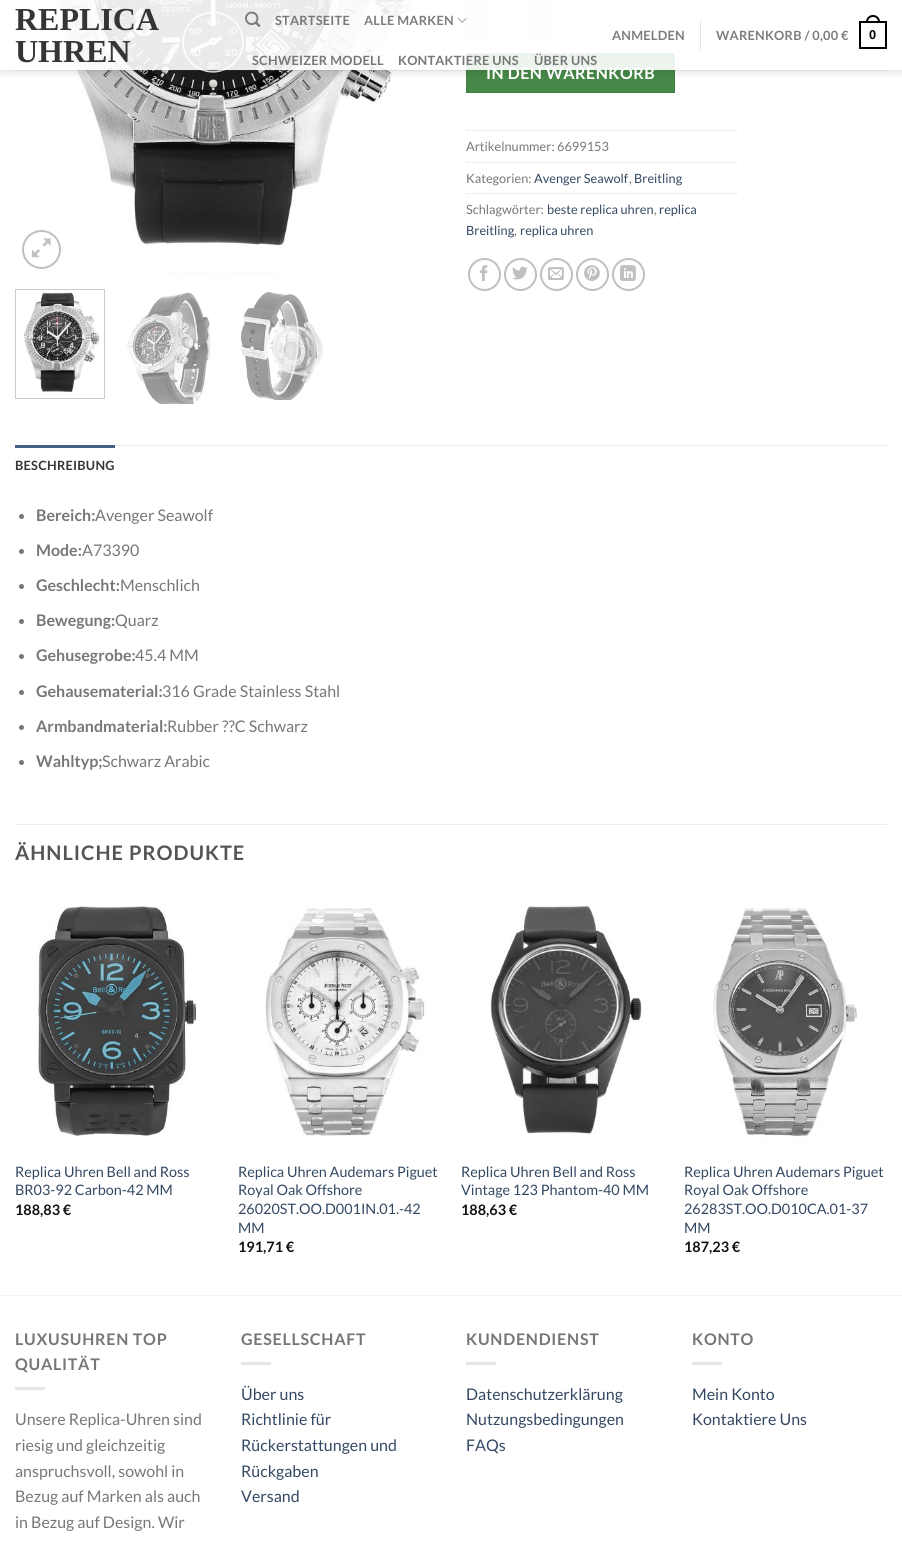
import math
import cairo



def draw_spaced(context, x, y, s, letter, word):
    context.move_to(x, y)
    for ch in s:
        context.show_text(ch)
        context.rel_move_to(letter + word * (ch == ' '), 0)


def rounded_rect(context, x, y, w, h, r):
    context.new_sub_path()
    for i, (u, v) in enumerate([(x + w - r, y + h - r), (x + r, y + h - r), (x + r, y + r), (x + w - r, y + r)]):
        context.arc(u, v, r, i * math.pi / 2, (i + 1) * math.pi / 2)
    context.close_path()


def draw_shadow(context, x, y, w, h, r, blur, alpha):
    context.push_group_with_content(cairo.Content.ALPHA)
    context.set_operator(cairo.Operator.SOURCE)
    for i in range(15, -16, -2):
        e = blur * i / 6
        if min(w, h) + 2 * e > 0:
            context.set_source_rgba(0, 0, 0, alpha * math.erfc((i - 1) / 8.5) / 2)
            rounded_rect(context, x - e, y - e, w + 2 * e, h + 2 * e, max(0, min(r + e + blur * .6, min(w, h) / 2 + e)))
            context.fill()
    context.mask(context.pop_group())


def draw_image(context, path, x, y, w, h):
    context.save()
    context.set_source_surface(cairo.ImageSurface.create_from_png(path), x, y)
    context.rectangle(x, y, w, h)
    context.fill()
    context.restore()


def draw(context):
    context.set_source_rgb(1, 1, 1)
    context.paint()
    draw_image(context, "images/4.png", 54, 0, 360, 274)
    context.set_source_rgb(249 / 255, 249 / 255, 249 / 255)
    context.rectangle(467, 0, 21, 36)
    context.fill()
    context.set_source_rgb(221 / 255, 221 / 255, 221 / 255)
    context.rectangle(466, 36, 22, 1)
    context.fill()
    context.rectangle(466, 0, 1, 37)
    context.fill()
    context.rectangle(488.5, -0.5, 39, 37)
    context.set_line_width(1)
    context.stroke()
    context.set_source_rgb(249 / 255, 249 / 255, 249 / 255)
    context.rectangle(528, 0, 25, 36)
    context.fill()
    context.set_source_rgb(221 / 255, 221 / 255, 221 / 255)
    context.rectangle(553, 0, 1, 37)
    context.fill()
    context.rectangle(528, 36, 26, 1)
    context.fill()
    context.set_source_rgb(70 / 255, 136 / 255, 71 / 255)
    context.rectangle(466.5, 53.5, 208, 39)
    context.fill_preserve()
    context.set_source_rgb(67 / 255, 129 / 255, 67 / 255)
    context.stroke()
    context.save()
    context.rectangle(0, 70, 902, 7)
    context.clip()
    context.set_source_rgb(0, 0, 0)
    draw_shadow(context, 1, 1, 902, 70, 0, 5, 0.15)
    context.restore()
    context.set_source_rgb(230 / 255, 230 / 255, 230 / 255)
    context.rectangle(700, 20, 1, 30)
    context.fill()
    context.rectangle(860, 22, 26, 26)
    context.set_source_rgb(0, 0, 0)
    context.set_line_width(2)
    context.stroke()
    context.new_path()
    context.move_to(873, 16)
    context.curve_to(876.5, 16, 879, 18.5, 879, 22)
    context.line_to(867, 22)
    context.curve_to(867, 18.5, 869.5, 16, 873, 16)
    context.close_path()
    context.stroke()
    context.set_source_rgba(119 / 255, 119 / 255, 119 / 255, 0.1)
    context.rectangle(15, 70, 872, 1)
    context.fill()
    context.arc(41.5, 249.5, 18.5, 0, 2 * math.pi)
    context.set_source_rgb(192 / 255, 192 / 255, 192 / 255)
    context.stroke()
    draw_image(context, "images/3.png", 32, 238, 19, 20)
    context.rectangle(15.5, 289.5, 89, 109)
    context.set_source_rgb(204 / 255, 204 / 255, 204 / 255)
    context.set_line_width(1)
    context.stroke()
    draw_image(context, "images/5.png", 23, 292, 77, 100)
    draw_image(context, "images/6.png", 127, 292, 84, 112)
    draw_image(context, "images/7.png", 240, 292, 83, 108)
    context.new_path()
    context.move_to(466, 130.5)
    context.line_to(737, 130.5)
    context.set_source_rgb(221 / 255, 221 / 255, 221 / 255)
    context.set_dash([1, 1])
    context.stroke()
    context.new_path()
    context.move_to(466, 162.5)
    context.line_to(737, 162.5)
    context.stroke()
    context.new_path()
    context.move_to(466, 193.5)
    context.line_to(737, 193.5)
    context.stroke()
    context.arc(484.5, 274.5, 15.5, 0, 2 * math.pi)
    context.set_source_rgb(192 / 255, 192 / 255, 192 / 255)
    context.set_line_width(2)
    context.set_dash([])
    context.stroke()
    draw_image(context, "images/8.png", 480, 265, 8, 16)
    context.arc(520.5, 274.5, 15.5, 0, 2 * math.pi)
    context.stroke()
    draw_image(context, "images/9.png", 512, 266, 16, 14)
    context.arc(556.5, 274.5, 15.5, 0, 2 * math.pi)
    context.stroke()
    draw_image(context, "images/10.png", 548, 267, 16, 13)
    context.arc(592.5, 274.5, 15.5, 0, 2 * math.pi)
    context.stroke()
    draw_image(context, "images/11.png", 584, 265, 16, 16)
    context.arc(628.5, 274.5, 15.5, 0, 2 * math.pi)
    context.stroke()
    draw_image(context, "images/12.png", 620, 265, 16, 16)
    context.set_source_rgb(236 / 255, 236 / 255, 236 / 255)
    context.rectangle(115, 445, 772, 1)
    context.fill()
    context.set_source_rgb(68 / 255, 96 / 255, 132 / 255)
    context.rectangle(15, 445, 100, 3)
    context.fill()
    context.set_source_rgb(119 / 255, 119 / 255, 119 / 255)
    context.arc(21.5, 516.5, 2.5, 0, 2 * math.pi)
    context.fill()
    context.arc(21.5, 551.5, 2.5, 0, 2 * math.pi)
    context.fill()
    context.arc(21.5, 586.5, 2.5, 0, 2 * math.pi)
    context.fill()
    context.arc(21.5, 621.5, 2.5, 0, 2 * math.pi)
    context.fill()
    context.arc(21.5, 656.5, 2.5, 0, 2 * math.pi)
    context.fill()
    context.arc(21.5, 692.5, 2.5, 0, 2 * math.pi)
    context.fill()
    context.arc(21.5, 727.5, 2.5, 0, 2 * math.pi)
    context.fill()
    context.arc(21.5, 762.5, 2.5, 0, 2 * math.pi)
    context.fill()
    context.set_source_rgb(236 / 255, 236 / 255, 236 / 255)
    context.rectangle(15, 824, 872, 1)
    context.fill()
    draw_image(context, "images/13.png", 37, 906, 161, 232)
    draw_image(context, "images/14.png", 265, 908, 162, 230)
    draw_image(context, "images/15.png", 490, 905, 152, 229)
    draw_image(context, "images/16.png", 713, 907, 144, 232)
    context.set_source_rgb(242 / 255, 242 / 255, 242 / 255)
    context.rectangle(0, 1295, 902, 1)
    context.fill()
    context.set_source_rgb(230 / 255, 230 / 255, 230 / 255)
    context.rectangle(15, 1387, 30, 3)
    context.fill()
    context.rectangle(241, 1362, 30, 3)
    context.fill()
    context.rectangle(466, 1362, 30, 3)
    context.fill()
    context.rectangle(692, 1362, 30, 3)
    context.fill()
    context.select_font_face("Lato", cairo.FontSlant.NORMAL, cairo.FontWeight.BOLD)
    context.set_font_size(12.75)
    context.set_source_rgb(125 / 255, 125 / 255, 125 / 255)
    draw_spaced(context, 716, 40, "WARENKORB / 0,00 €", 0.25, 0)
    context.select_font_face("Liberation Sans", cairo.FontSlant.NORMAL, cairo.FontWeight.BOLD)
    context.set_source_rgb(0, 0, 0)
    draw_spaced(context, 869, 39, "0", 0.25, 0)
    context.select_font_face("Lato", cairo.FontSlant.NORMAL, cairo.FontWeight.BOLD)
    context.set_font_size(16)
    context.set_source_rgb(1, 1, 1)
    draw_spaced(context, 486, 79, "IN DEN WARENKORB", 0.5, 0)
    context.set_source_rgba(1, 1, 1, 0.9)
    context.rectangle(54, 0, 621, 70)
    context.fill()
    context.set_font_size(12.75)
    context.set_source_rgb(125 / 255, 125 / 255, 125 / 255)
    draw_spaced(context, 612, 40, "ANMELDEN", 0.25, 0)
    context.set_source_rgb(119 / 255, 119 / 255, 119 / 255)
    draw_spaced(context, 534, 65, "ÜBER UNS", 0.25, 0)
    draw_spaced(context, 398, 65, "KONTAKTIERE UNS", 0.25, 0)
    draw_spaced(context, 252, 65, "SCHWEIZER MODELL", 0.25, 0)
    draw_image(context, "images/2.png", 457, 17, 10, 6)
    context.set_source_rgb(125 / 255, 125 / 255, 125 / 255)
    draw_spaced(context, 364, 25, "ALLE MARKEN", 0.25, 0)
    context.set_source_rgb(119 / 255, 119 / 255, 119 / 255)
    draw_spaced(context, 275, 25, "STARTSEITE", 0.25, 0)
    draw_image(context, "images/1.png", 245, 11, 16, 16)
    context.select_font_face("Liberation Serif", cairo.FontSlant.NORMAL, cairo.FontWeight.BOLD)
    context.set_font_size(32)
    context.set_source_rgb(53 / 255, 53 / 255, 53 / 255)
    context.move_to(15, 62)
    context.show_text("UHREN")
    context.move_to(15, 30)
    context.show_text("REPLICA")
    context.select_font_face("Lato")
    context.set_font_size(12.75)
    context.set_source_rgb(119 / 255, 119 / 255, 119 / 255)
    context.move_to(466, 151)
    context.show_text("Artikelnummer: 6699153")
    context.move_to(466, 183)
    context.show_text("Kategorien:")
    context.set_source_rgb(51 / 255, 72 / 255, 98 / 255)
    context.move_to(534, 183)
    context.show_text("Avenger Seawolf")
    context.set_source_rgb(119 / 255, 119 / 255, 119 / 255)
    context.move_to(629, 183)
    context.show_text(",")
    context.set_source_rgb(51 / 255, 72 / 255, 98 / 255)
    context.move_to(634, 183)
    context.show_text("Breitling")
    context.set_source_rgb(119 / 255, 119 / 255, 119 / 255)
    context.move_to(466, 214)
    context.show_text("Schlagwörter:")
    context.set_source_rgb(51 / 255, 72 / 255, 98 / 255)
    context.move_to(547, 214)
    context.show_text("beste replica uhren")
    context.set_source_rgb(119 / 255, 119 / 255, 119 / 255)
    context.move_to(654, 214)
    context.show_text(",")
    context.set_source_rgb(51 / 255, 72 / 255, 98 / 255)
    context.move_to(659, 214)
    context.show_text("replica")
    context.move_to(466, 235)
    context.show_text("Breitling")
    context.set_source_rgb(119 / 255, 119 / 255, 119 / 255)
    context.move_to(514, 235)
    context.show_text(",")
    context.set_source_rgb(51 / 255, 72 / 255, 98 / 255)
    context.move_to(520, 235)
    context.show_text("replica uhren")
    context.select_font_face("Lato", cairo.FontSlant.NORMAL, cairo.FontWeight.BOLD)
    context.set_source_rgb(53 / 255, 53 / 255, 53 / 255)
    draw_spaced(context, 15, 470, "BESCHREIBUNG", 0.25, 0)
    context.set_font_size(16)
    context.set_source_rgb(119 / 255, 119 / 255, 119 / 255)
    context.move_to(36, 521)
    context.show_text("Bereich:")
    context.select_font_face("Lato")
    context.move_to(95, 521)
    context.show_text("Avenger Seawolf")
    context.select_font_face("Lato", cairo.FontSlant.NORMAL, cairo.FontWeight.BOLD)
    context.move_to(36, 556)
    context.show_text("Mode:")
    context.select_font_face("Lato")
    context.move_to(82, 556)
    context.show_text("A73390")
    context.select_font_face("Lato", cairo.FontSlant.NORMAL, cairo.FontWeight.BOLD)
    context.move_to(36, 591)
    context.show_text("Geschlecht:")
    context.select_font_face("Lato")
    context.move_to(120, 591)
    context.show_text("Menschlich")
    context.select_font_face("Lato", cairo.FontSlant.NORMAL, cairo.FontWeight.BOLD)
    context.move_to(36, 626)
    context.show_text("Bewegung:")
    context.select_font_face("Lato")
    context.move_to(115, 626)
    context.show_text("Quarz")
    context.select_font_face("Lato", cairo.FontSlant.NORMAL, cairo.FontWeight.BOLD)
    context.move_to(36, 661)
    context.show_text("Gehusegrobe:")
    context.select_font_face("Lato")
    context.move_to(135, 661)
    context.show_text("45.4 MM")
    context.select_font_face("Lato", cairo.FontSlant.NORMAL, cairo.FontWeight.BOLD)
    context.move_to(36, 697)
    context.show_text("Gehausematerial:")
    context.select_font_face("Lato")
    context.move_to(162, 697)
    context.show_text("316 Grade Stainless Stahl")
    context.select_font_face("Lato", cairo.FontSlant.NORMAL, cairo.FontWeight.BOLD)
    context.move_to(36, 732)
    context.show_text("Armbandmaterial:")
    context.select_font_face("Lato")
    context.move_to(167, 732)
    context.show_text("Rubber ??C Schwarz")
    context.select_font_face("Lato", cairo.FontSlant.NORMAL, cairo.FontWeight.BOLD)
    context.move_to(36, 767)
    context.show_text("Wahltyp;")
    context.select_font_face("Lato")
    context.move_to(102, 767)
    context.show_text("Schwarz Arabic")
    context.select_font_face("Lato", cairo.FontSlant.NORMAL, cairo.FontWeight.BOLD)
    context.set_font_size(20)
    context.set_source_rgb(85 / 255, 85 / 255, 85 / 255)
    draw_spaced(context, 15, 860, "ÄHNLICHE PRODUKTE", 1, 0)
    context.select_font_face("Lato")
    context.set_font_size(14.4)
    context.set_source_rgb(51 / 255, 72 / 255, 98 / 255)
    context.move_to(15, 1177)
    context.show_text("Replica Uhren Bell and Ross")
    context.move_to(15, 1195)
    context.show_text("BR03-92 Carbon-42 MM")
    context.select_font_face("Lato", cairo.FontSlant.NORMAL, cairo.FontWeight.BOLD)
    context.set_source_rgb(17 / 255, 17 / 255, 17 / 255)
    context.move_to(15, 1215)
    context.show_text("188,83 €")
    context.select_font_face("Lato")
    context.set_source_rgb(51 / 255, 72 / 255, 98 / 255)
    context.move_to(238, 1177)
    context.show_text("Replica Uhren Audemars Piguet")
    context.move_to(238, 1195)
    context.show_text("Royal Oak Offshore")
    context.move_to(238, 1214)
    context.show_text("26020ST.OO.D001IN.01.-42")
    context.move_to(238, 1233)
    context.show_text("MM")
    context.select_font_face("Lato", cairo.FontSlant.NORMAL, cairo.FontWeight.BOLD)
    context.set_source_rgb(17 / 255, 17 / 255, 17 / 255)
    context.move_to(238, 1252)
    context.show_text("191,71 €")
    context.select_font_face("Lato")
    context.set_source_rgb(51 / 255, 72 / 255, 98 / 255)
    context.move_to(461, 1177)
    context.show_text("Replica Uhren Bell and Ross")
    context.move_to(461, 1195)
    context.show_text("Vintage 123 Phantom-40 MM")
    context.select_font_face("Lato", cairo.FontSlant.NORMAL, cairo.FontWeight.BOLD)
    context.set_source_rgb(17 / 255, 17 / 255, 17 / 255)
    context.move_to(461, 1215)
    context.show_text("188,63 €")
    context.select_font_face("Lato")
    context.set_source_rgb(51 / 255, 72 / 255, 98 / 255)
    context.move_to(684, 1177)
    context.show_text("Replica Uhren Audemars Piguet")
    context.move_to(684, 1195)
    context.show_text("Royal Oak Offshore")
    context.move_to(684, 1214)
    context.show_text("26283ST.OO.D010CA.01-37")
    context.move_to(684, 1233)
    context.show_text("MM")
    context.select_font_face("Lato", cairo.FontSlant.NORMAL, cairo.FontWeight.BOLD)
    context.set_source_rgb(17 / 255, 17 / 255, 17 / 255)
    context.move_to(684, 1252)
    context.show_text("187,23 €")
    context.set_font_size(16)
    context.set_source_rgb(119 / 255, 119 / 255, 119 / 255)
    draw_spaced(context, 15, 1345, "LUXUSUHREN TOP", 0.75, 0)
    draw_spaced(context, 15, 1370, "QUALITÄT", 0.75, 0)
    context.select_font_face("Lato")
    context.move_to(15, 1425)
    context.show_text("Unsere Replica-Uhren sind")
    context.move_to(15, 1451)
    context.show_text("riesig und gleichzeitig")
    context.move_to(15, 1477)
    context.show_text("anspruchsvoll, sowohl in")
    context.move_to(15, 1502)
    context.show_text("Bezug auf Marken als auch")
    context.move_to(15, 1528)
    context.show_text("in Bezug auf Design. Wir")
    context.select_font_face("Lato", cairo.FontSlant.NORMAL, cairo.FontWeight.BOLD)
    draw_spaced(context, 241, 1345, "GESELLSCHAFT", 0.75, 0)
    context.select_font_face("Lato")
    context.set_source_rgb(51 / 255, 72 / 255, 98 / 255)
    context.move_to(241, 1400)
    context.show_text("Über uns")
    context.move_to(241, 1425)
    context.show_text("Richtlinie für")
    context.move_to(241, 1451)
    context.show_text("Rückerstattungen und")
    context.move_to(241, 1477)
    context.show_text("Rückgaben")
    context.move_to(241, 1502)
    context.show_text("Versand")
    context.select_font_face("Lato", cairo.FontSlant.NORMAL, cairo.FontWeight.BOLD)
    context.set_source_rgb(119 / 255, 119 / 255, 119 / 255)
    draw_spaced(context, 466, 1345, "KUNDENDIENST", 0.75, 0)
    context.select_font_face("Lato")
    context.set_source_rgb(51 / 255, 72 / 255, 98 / 255)
    context.move_to(466, 1400)
    context.show_text("Datenschutzerklärung")
    context.move_to(466, 1425)
    context.show_text("Nutzungsbedingungen")
    context.move_to(466, 1451)
    context.show_text("FAQs")
    context.select_font_face("Lato", cairo.FontSlant.NORMAL, cairo.FontWeight.BOLD)
    context.set_source_rgb(119 / 255, 119 / 255, 119 / 255)
    draw_spaced(context, 692, 1345, "KONTO", 0.75, 0)
    context.select_font_face("Lato")
    context.set_source_rgb(51 / 255, 72 / 255, 98 / 255)
    context.move_to(692, 1400)
    context.show_text("Mein Konto")
    context.move_to(692, 1425)
    context.show_text("Kontaktiere Uns")


surface = cairo.ImageSurface(cairo.Format.RGB24, 902, 1542)
context = cairo.Context(surface)
options = cairo.FontOptions()
options.set_hint_metrics(cairo.HintMetrics.OFF)
options.set_hint_style(cairo.HintStyle.NONE)
context.set_font_options(options)
context.set_miter_limit(4)
draw(context)
surface.write_to_png("out.png")
